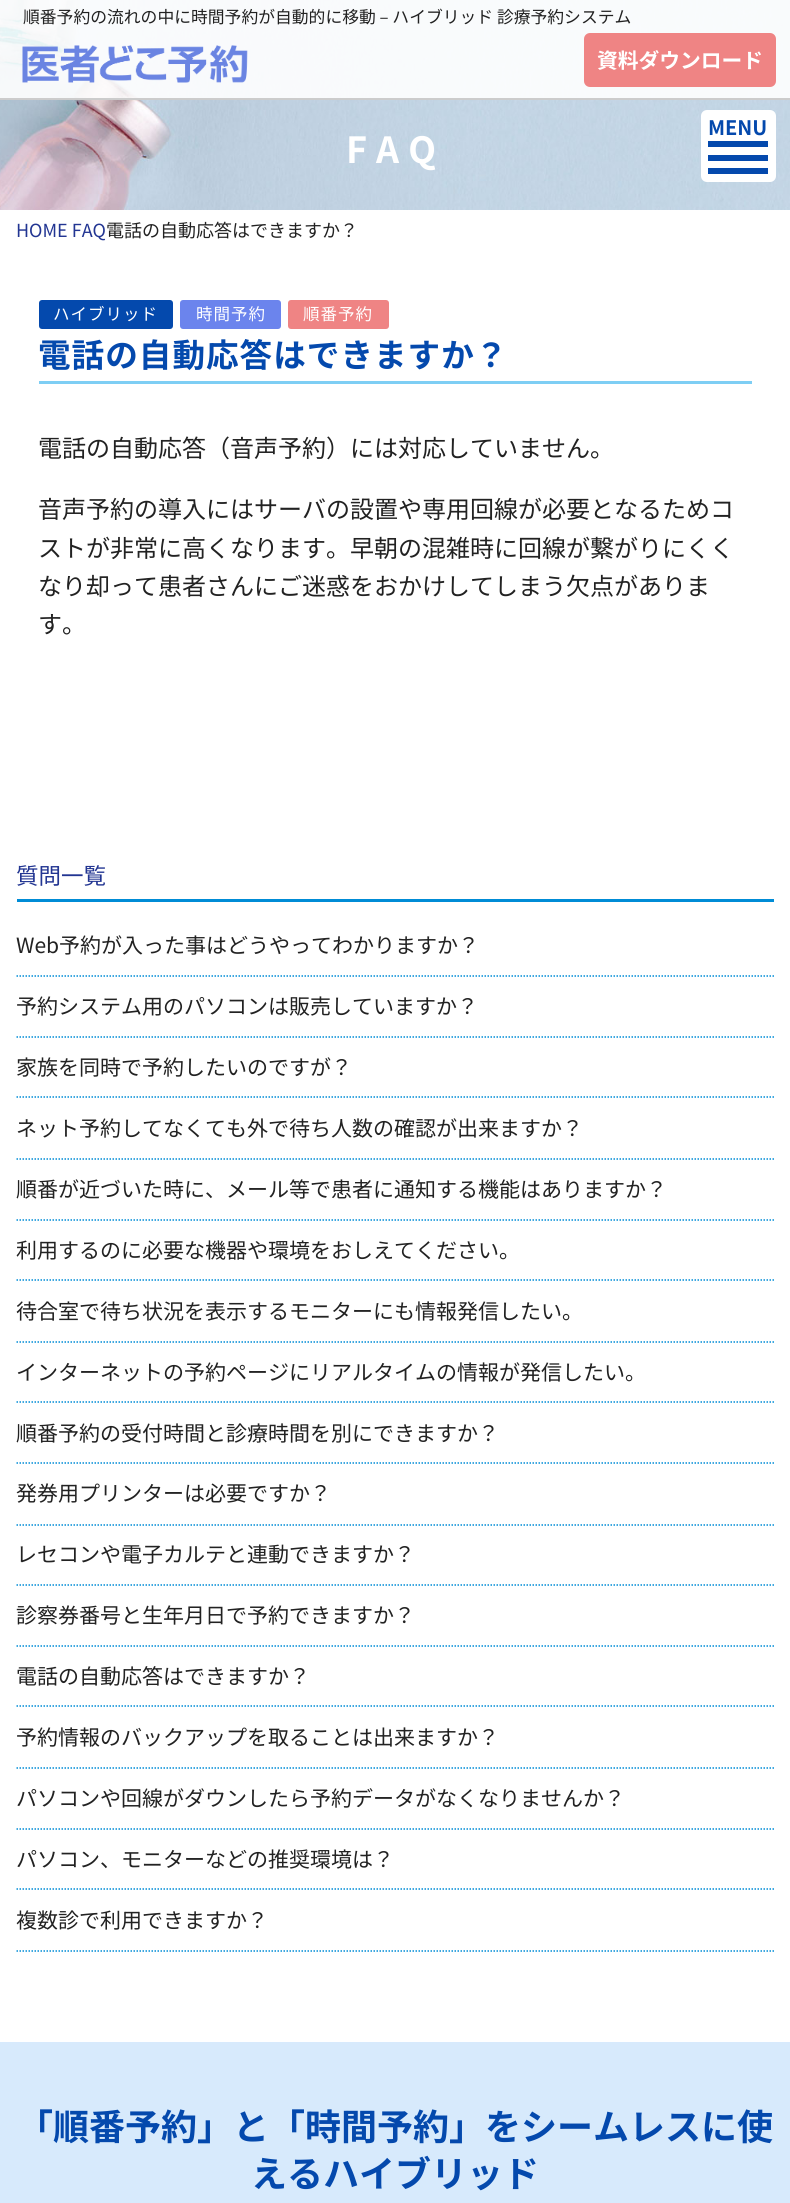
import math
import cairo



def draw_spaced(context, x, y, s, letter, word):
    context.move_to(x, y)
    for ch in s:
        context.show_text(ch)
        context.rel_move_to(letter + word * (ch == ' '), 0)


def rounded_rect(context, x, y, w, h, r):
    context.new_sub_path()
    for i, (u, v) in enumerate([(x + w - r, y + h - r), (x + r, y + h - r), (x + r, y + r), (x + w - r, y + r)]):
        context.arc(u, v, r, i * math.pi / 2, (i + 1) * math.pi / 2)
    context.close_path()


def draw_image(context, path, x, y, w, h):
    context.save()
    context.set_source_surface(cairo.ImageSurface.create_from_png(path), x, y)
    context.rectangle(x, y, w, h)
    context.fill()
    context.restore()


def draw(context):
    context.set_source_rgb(1, 1, 1)
    context.paint()
    draw_image(context, "images/2.png", 0, 0, 790, 210)
    context.set_source_rgba(1, 1, 1, 0.9)
    context.rectangle(0, 0, 790, 98)
    context.fill()
    context.set_source_rgb(204 / 255, 204 / 255, 204 / 255)
    context.rectangle(0, 98, 790, 2)
    context.fill()
    draw_image(context, "images/1.png", 22, 45, 226, 38)
    context.set_source_rgb(239 / 255, 132 / 255, 132 / 255)
    rounded_rect(context, 584, 33, 192, 54, 6)
    context.fill()
    context.set_source_rgb(1, 1, 1)
    rounded_rect(context, 701, 110, 75, 72, 6)
    context.fill()
    context.set_source_rgb(4 / 255, 73 / 255, 173 / 255)
    context.rectangle(708, 141, 60, 6)
    context.fill()
    context.rectangle(708, 155, 60, 6)
    context.fill()
    context.rectangle(708, 168, 60, 6)
    context.fill()
    context.set_source_rgb(126 / 255, 206 / 255, 244 / 255)
    context.rectangle(39, 381, 713, 3)
    context.fill()
    context.set_source_rgb(4 / 255, 73 / 255, 173 / 255)
    rounded_rect(context, 39, 300, 134, 29, 3)
    context.fill()
    context.set_source_rgb(107 / 255, 132 / 255, 237 / 255)
    rounded_rect(context, 180, 300, 101, 29, 3)
    context.fill()
    context.set_source_rgb(239 / 255, 132 / 255, 132 / 255)
    rounded_rect(context, 288, 300, 101, 29, 3)
    context.fill()
    context.set_source_rgb(0, 140 / 255, 214 / 255)
    context.rectangle(17, 899, 757, 3)
    context.fill()
    context.new_path()
    context.move_to(16.5, 976)
    context.line_to(774, 976)
    context.set_line_width(1.5)
    context.set_dash([1.5, 1.5])
    context.stroke()
    context.new_path()
    context.move_to(16.5, 1037)
    context.line_to(774, 1037)
    context.stroke()
    context.new_path()
    context.move_to(16.5, 1097)
    context.line_to(774, 1097)
    context.stroke()
    context.new_path()
    context.move_to(16.5, 1159)
    context.line_to(774, 1159)
    context.stroke()
    context.new_path()
    context.move_to(16.5, 1220)
    context.line_to(774, 1220)
    context.stroke()
    context.new_path()
    context.move_to(16.5, 1280)
    context.line_to(774, 1280)
    context.stroke()
    context.new_path()
    context.move_to(16.5, 1342)
    context.line_to(774, 1342)
    context.stroke()
    context.new_path()
    context.move_to(16.5, 1402)
    context.line_to(774, 1402)
    context.stroke()
    context.new_path()
    context.move_to(16.5, 1463)
    context.line_to(774, 1463)
    context.stroke()
    context.new_path()
    context.move_to(16.5, 1525)
    context.line_to(774, 1525)
    context.stroke()
    context.new_path()
    context.move_to(16.5, 1585)
    context.line_to(774, 1585)
    context.stroke()
    context.new_path()
    context.move_to(16.5, 1646)
    context.line_to(774, 1646)
    context.stroke()
    context.new_path()
    context.move_to(16.5, 1706)
    context.line_to(774, 1706)
    context.stroke()
    context.new_path()
    context.move_to(16.5, 1768)
    context.line_to(774, 1768)
    context.stroke()
    context.new_path()
    context.move_to(16.5, 1829)
    context.line_to(774, 1829)
    context.stroke()
    context.new_path()
    context.move_to(16.5, 1889)
    context.line_to(774, 1889)
    context.stroke()
    context.new_path()
    context.move_to(16.5, 1951)
    context.line_to(774, 1951)
    context.stroke()
    context.set_source_rgb(215 / 255, 234 / 255, 252 / 255)
    context.rectangle(0, 2042, 790, 161)
    context.fill()
    context.select_font_face("Noto Sans JP")
    context.set_font_size(16.8)
    context.set_source_rgb(34 / 255, 34 / 255, 34 / 255)
    context.move_to(23, 23)
    context.show_text("順番予約の流れの中に時間予約が自動的に移動 – ハイブリッド 診療予約システム")
    context.select_font_face("Noto Sans JP", cairo.FontSlant.NORMAL, cairo.FontWeight.BOLD)
    context.set_font_size(20.75)
    context.set_source_rgb(1, 1, 1)
    context.move_to(597, 68)
    context.show_text("資料ダウンロード")
    context.set_font_size(20)
    context.set_source_rgb(4 / 255, 73 / 255, 173 / 255)
    context.move_to(708, 135)
    context.show_text("MENU")
    context.set_font_size(36)
    context.set_source_rgb(1, 1, 1)
    draw_spaced(context, 346, 163, "FAQ", 9, 0)
    context.select_font_face("Noto Sans JP")
    context.set_font_size(18)
    context.set_source_rgb(34 / 255, 53 / 255, 146 / 255)
    context.move_to(16, 237)
    context.show_text("HOME FAQ")
    context.set_source_rgb(34 / 255, 34 / 255, 34 / 255)
    context.move_to(106, 237)
    context.show_text("電話の自動応答はできますか？")
    context.set_font_size(16.5)
    context.set_source_rgb(1, 1, 1)
    draw_spaced(context, 53, 320, "ハイブリッド", 1, 0)
    draw_spaced(context, 196, 320, "時間予約", 1, 0)
    draw_spaced(context, 303, 320, "順番予約", 1, 0)
    context.select_font_face("Noto Sans JP", cairo.FontSlant.NORMAL, cairo.FontWeight.BOLD)
    context.set_font_size(32.6)
    context.set_source_rgb(4 / 255, 73 / 255, 173 / 255)
    draw_spaced(context, 38, 367, "電話の自動応答はできますか？", 1, 0)
    context.select_font_face("Noto Sans JP")
    context.set_font_size(24)
    context.set_source_rgb(34 / 255, 34 / 255, 34 / 255)
    context.move_to(38, 457)
    context.show_text("電話の自動応答（音声予約）には対応していません。")
    context.move_to(38, 518)
    context.show_text("音声予約の導入にはサーバの設置や専用回線が必要となるためコ")
    context.move_to(38, 557)
    context.show_text("ストが非常に高くなります。早朝の混雑時に回線が繋がりにくく")
    context.move_to(38, 595)
    context.show_text("なり却って患者さんにご迷惑をおかけしてしまう欠点がありま")
    context.move_to(38, 633)
    context.show_text("す。")
    context.set_font_size(22.5)
    context.set_source_rgb(34 / 255, 53 / 255, 146 / 255)
    context.move_to(16, 884)
    context.show_text("質問一覧")
    context.set_font_size(21)
    context.set_source_rgb(34 / 255, 34 / 255, 34 / 255)
    context.move_to(16, 953)
    context.show_text("Web予約が入った事はどうやってわかりますか？")
    context.move_to(16, 1014)
    context.show_text("予約システム用のパソコンは販売していますか？")
    context.move_to(16, 1075)
    context.show_text("家族を同時で予約したいのですが？")
    context.move_to(16, 1136)
    context.show_text("ネット予約してなくても外で待ち人数の確認が出来ますか？")
    context.move_to(16, 1197)
    context.show_text("順番が近づいた時に、メール等で患者に通知する機能はありますか？")
    context.move_to(16, 1258)
    context.show_text("利用するのに必要な機器や環境をおしえてください。")
    context.move_to(16, 1319)
    context.show_text("待合室で待ち状況を表示するモニターにも情報発信したい。")
    context.move_to(16, 1380)
    context.show_text("インターネットの予約ページにリアルタイムの情報が発信したい。")
    context.move_to(16, 1441)
    context.show_text("順番予約の受付時間と診療時間を別にできますか？")
    context.move_to(16, 1501)
    context.show_text("発券用プリンターは必要ですか？")
    context.move_to(16, 1562)
    context.show_text("レセコンや電子カルテと連動できますか？")
    context.move_to(16, 1623)
    context.show_text("診察券番号と生年月日で予約できますか？")
    context.move_to(16, 1684)
    context.show_text("電話の自動応答はできますか？")
    context.move_to(16, 1745)
    context.show_text("予約情報のバックアップを取ることは出来ますか？")
    context.move_to(16, 1806)
    context.show_text("パソコンや回線がダウンしたら予約データがなくなりませんか？")
    context.move_to(16, 1867)
    context.show_text("パソコン、モニターなどの推奨環境は？")
    context.move_to(16, 1928)
    context.show_text("複数診で利用できますか？")
    context.select_font_face("Noto Sans JP", cairo.FontSlant.NORMAL, cairo.FontWeight.BOLD)
    context.set_font_size(36)
    context.set_source_rgb(4 / 255, 73 / 255, 173 / 255)
    context.move_to(17, 2140)
    context.show_text("「順番予約」と「時間予約」をシームレスに使")
    context.move_to(251, 2187)
    context.show_text("えるハイブリッド")


surface = cairo.ImageSurface(cairo.Format.RGB24, 790, 2203)
context = cairo.Context(surface)
options = cairo.FontOptions()
options.set_hint_metrics(cairo.HintMetrics.OFF)
options.set_hint_style(cairo.HintStyle.NONE)
context.set_font_options(options)
context.set_miter_limit(4)
draw(context)
surface.write_to_png("out.png")
